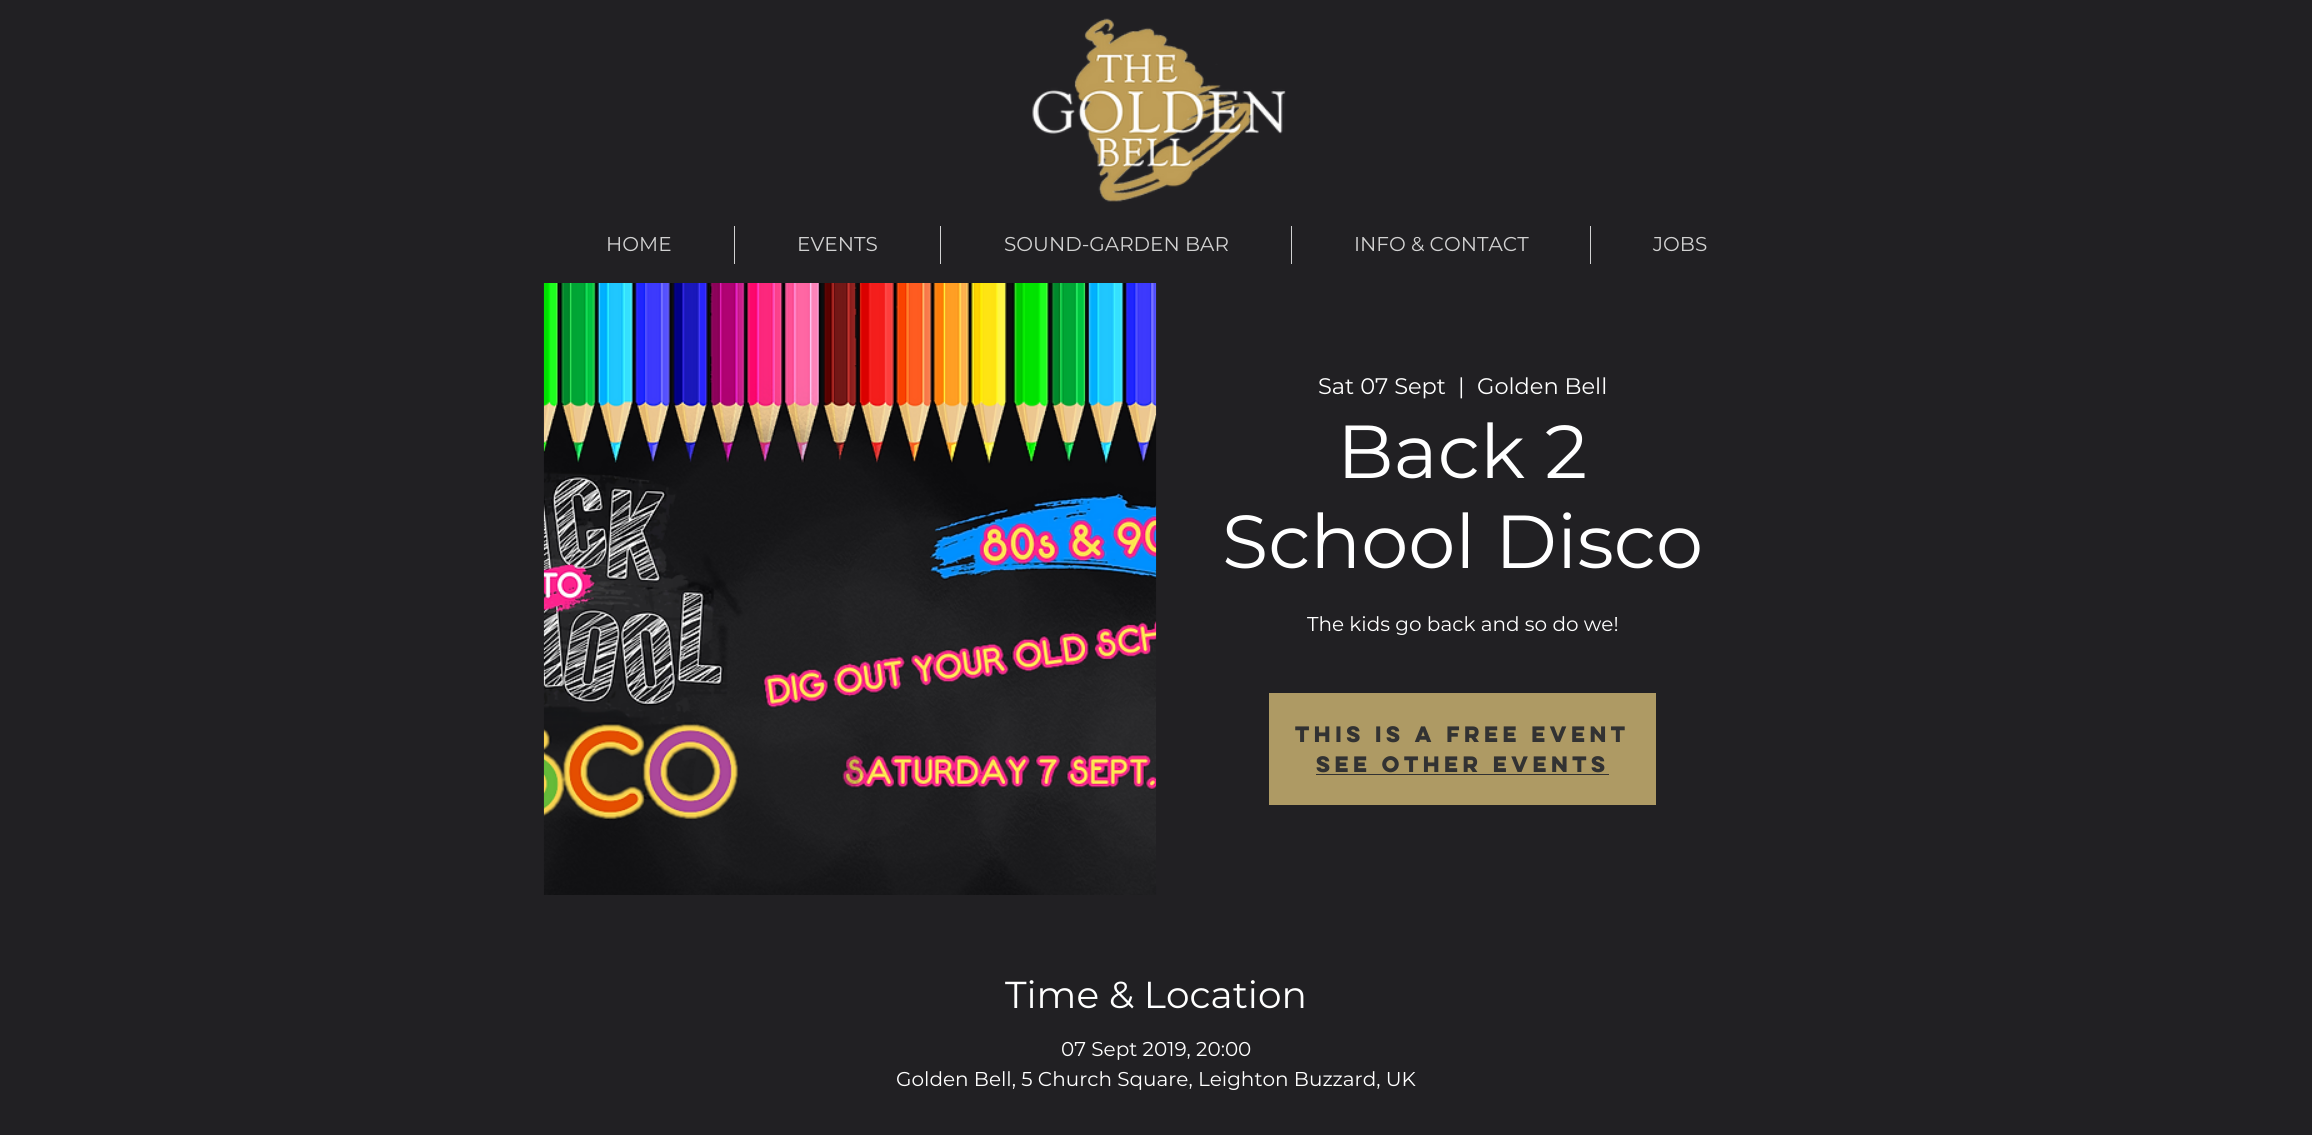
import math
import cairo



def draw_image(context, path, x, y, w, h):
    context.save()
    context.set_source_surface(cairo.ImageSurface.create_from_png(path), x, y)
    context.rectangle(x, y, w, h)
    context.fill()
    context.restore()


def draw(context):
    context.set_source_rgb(33 / 255, 32 / 255, 35 / 255)
    context.paint()
    draw_image(context, "images/1.png", 1032, 18, 254, 184)
    context.set_source_rgb(210 / 255, 210 / 255, 210 / 255)
    context.rectangle(734, 226, 1, 38)
    context.fill()
    context.rectangle(940, 226, 1, 38)
    context.fill()
    context.rectangle(1291, 226, 1, 38)
    context.fill()
    context.rectangle(1590, 226, 1, 38)
    context.fill()
    draw_image(context, "images/2.png", 543, 283, 614, 612)
    context.set_source_rgb(174 / 255, 154 / 255, 100 / 255)
    context.rectangle(1269, 693, 387, 112)
    context.fill()
    context.set_source_rgb(50 / 255, 50 / 255, 50 / 255)
    context.rectangle(1316, 774, 293, 1)
    context.fill()
    context.select_font_face("Montserrat")
    context.set_font_size(20)
    context.set_source_rgb(210 / 255, 210 / 255, 210 / 255)
    context.move_to(606, 251)
    context.show_text("HOME")
    context.move_to(797, 251)
    context.show_text("EVENTS")
    context.move_to(1004, 251)
    context.show_text("SOUND-GARDEN BAR")
    context.move_to(1354, 251)
    context.show_text("INFO & CONTACT")
    context.move_to(1653, 251)
    context.show_text("JOBS")
    context.set_font_size(22.5)
    context.set_source_rgb(1, 1, 1)
    context.move_to(1318, 394)
    context.show_text("Sat 07 Sept")
    context.move_to(1458, 394)
    context.show_text("|")
    context.move_to(1477, 394)
    context.show_text("Golden Bell")
    context.set_font_size(75)
    context.move_to(1337, 478)
    context.show_text("Back 2")
    context.move_to(1222, 568)
    context.show_text("School Disco")
    context.set_font_size(20)
    context.move_to(1307, 631)
    context.show_text("The kids go back and so do we!")
    context.select_font_face("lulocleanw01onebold", cairo.FontSlant.NORMAL, cairo.FontWeight.BOLD)
    context.set_source_rgb(50 / 255, 50 / 255, 50 / 255)
    context.move_to(1295, 742)
    context.show_text("This is a FREE event")
    context.move_to(1316, 772)
    context.show_text("See other events")
    context.select_font_face("Montserrat")
    context.set_font_size(37.5)
    context.set_source_rgb(1, 1, 1)
    context.move_to(1005, 1008)
    context.show_text("Time & Location")
    context.set_font_size(20)
    context.move_to(1061, 1056)
    context.show_text("07 Sept 2019, 20:00")
    context.move_to(896, 1086)
    context.show_text("Golden Bell, 5 Church Square, Leighton Buzzard, UK")


surface = cairo.ImageSurface(cairo.Format.RGB24, 2312, 1135)
context = cairo.Context(surface)
options = cairo.FontOptions()
options.set_hint_metrics(cairo.HintMetrics.OFF)
options.set_hint_style(cairo.HintStyle.NONE)
context.set_font_options(options)
context.set_miter_limit(4)
draw(context)
surface.write_to_png("out.png")
